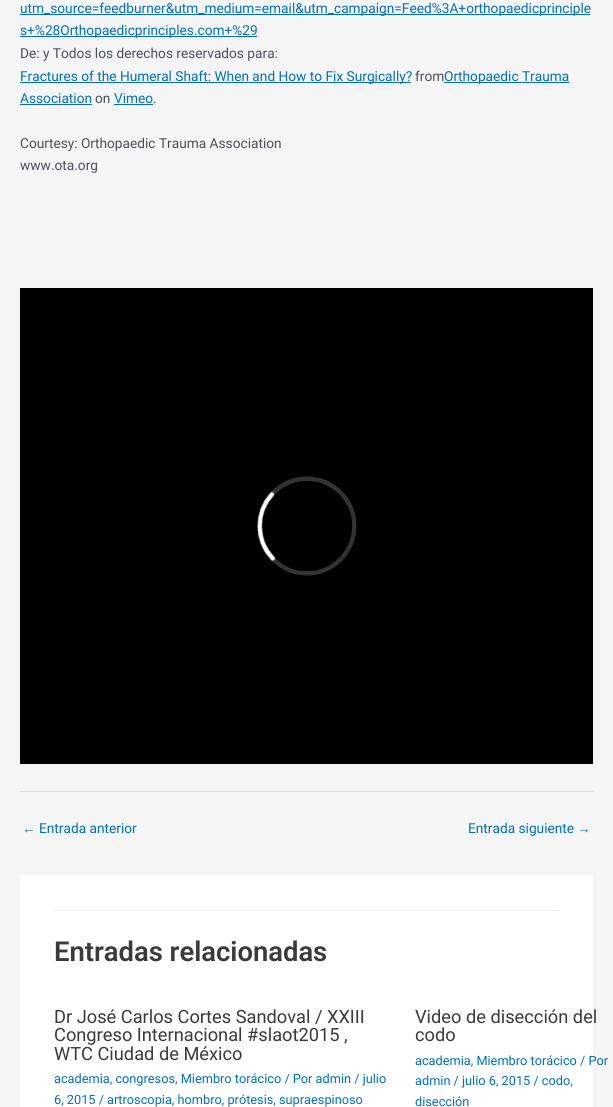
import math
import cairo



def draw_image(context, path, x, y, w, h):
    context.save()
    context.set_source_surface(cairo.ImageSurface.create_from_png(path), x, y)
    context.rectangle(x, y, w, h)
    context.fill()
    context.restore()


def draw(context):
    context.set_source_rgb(245 / 255, 245 / 255, 245 / 255)
    context.paint()
    context.set_source_rgb(1 / 255, 112 / 255, 185 / 255)
    context.rectangle(20, 14, 570, 1)
    context.fill()
    context.rectangle(20, 36, 237, 1)
    context.fill()
    context.rectangle(20, 82, 391, 1)
    context.fill()
    context.rectangle(444, 82, 125, 1)
    context.fill()
    context.rectangle(20, 104, 72, 1)
    context.fill()
    context.rectangle(114, 104, 39, 1)
    context.fill()
    draw_image(context, "images/1.png", 20, 288, 573, 476)
    context.set_source_rgb(221 / 255, 221 / 255, 221 / 255)
    context.rectangle(20, 791, 573, 1)
    context.fill()
    context.set_source_rgb(1, 1, 1)
    context.rectangle(20, 875, 573, 232)
    context.fill()
    context.set_source_rgb(238 / 255, 238 / 255, 238 / 255)
    context.rectangle(54, 910, 505, 1)
    context.fill()
    context.select_font_face("Roboto")
    context.set_font_size(13.7)
    context.set_source_rgb(1 / 255, 112 / 255, 185 / 255)
    context.move_to(20, 13)
    context.show_text("utm_source=feedburner&utm_medium=email&utm_campaign=Feed%3A+orthopaedicprinciple")
    context.move_to(20, 35)
    context.show_text("s+%28Orthopaedicprinciples.com+%29")
    context.set_source_rgb(75 / 255, 79 / 255, 88 / 255)
    context.move_to(20, 58)
    context.show_text("De: y Todos los derechos reservados para:")
    context.set_source_rgb(1 / 255, 112 / 255, 185 / 255)
    context.move_to(20, 81)
    context.show_text("Fractures of the Humeral Shaft: When and How to Fix Surgically?")
    context.set_source_rgb(75 / 255, 79 / 255, 88 / 255)
    context.move_to(415, 81)
    context.show_text("from")
    context.set_source_rgb(1 / 255, 112 / 255, 185 / 255)
    context.move_to(444, 81)
    context.show_text("Orthopaedic Trauma")
    context.move_to(20, 103)
    context.show_text("Association")
    context.set_source_rgb(75 / 255, 79 / 255, 88 / 255)
    context.move_to(95, 103)
    context.show_text("on")
    context.set_source_rgb(1 / 255, 112 / 255, 185 / 255)
    context.move_to(114, 103)
    context.show_text("Vimeo")
    context.set_source_rgb(75 / 255, 79 / 255, 88 / 255)
    context.move_to(153, 103)
    context.show_text(".")
    context.move_to(20, 148)
    context.show_text("Courtesy: Orthopaedic Trauma Association")
    context.move_to(20, 170)
    context.show_text("www.ota.org")
    context.select_font_face("Liberation Sans")
    context.set_source_rgb(1 / 255, 112 / 255, 185 / 255)
    context.move_to(22, 833)
    context.show_text("←")
    context.select_font_face("Roboto")
    context.move_to(39, 833)
    context.show_text("Entrada anterior")
    context.move_to(468, 833)
    context.show_text("Entrada siguiente")
    context.select_font_face("Liberation Sans")
    context.move_to(577, 833)
    context.show_text("→")
    context.select_font_face("Roboto SemiBold")
    context.set_font_size(27.4)
    context.set_source_rgb(58 / 255, 58 / 255, 58 / 255)
    context.move_to(54, 961)
    context.show_text("Entradas relacionadas")
    context.select_font_face("Roboto")
    context.set_font_size(18.25)
    context.move_to(54, 1023)
    context.show_text("Dr José Carlos Cortes Sandoval / XXIII")
    context.move_to(54, 1041)
    context.show_text("Congreso Internacional #slaot2015 ,")
    context.move_to(54, 1060)
    context.show_text("WTC Ciudad de México")
    context.set_font_size(12.75)
    context.set_source_rgb(1 / 255, 112 / 255, 185 / 255)
    context.move_to(54, 1083)
    context.show_text("academia, congresos, Miembro torácico / Por admin / julio")
    context.move_to(54, 1104)
    context.show_text("6, 2015 / artroscopia, hombro, prótesis, supraespinoso")
    context.set_font_size(18.25)
    context.set_source_rgb(58 / 255, 58 / 255, 58 / 255)
    context.move_to(415, 1023)
    context.show_text("Video de disección del")
    context.move_to(415, 1041)
    context.show_text("codo")
    context.set_font_size(12.75)
    context.set_source_rgb(1 / 255, 112 / 255, 185 / 255)
    context.move_to(415, 1065)
    context.show_text("academia, Miembro torácico / Por")
    context.move_to(415, 1085)
    context.show_text("admin / julio 6, 2015 / codo,")
    context.move_to(415, 1106)
    context.show_text("disección")


surface = cairo.ImageSurface(cairo.Format.RGB24, 613, 1107)
context = cairo.Context(surface)
options = cairo.FontOptions()
options.set_hint_metrics(cairo.HintMetrics.OFF)
options.set_hint_style(cairo.HintStyle.NONE)
context.set_font_options(options)
context.set_miter_limit(4)
draw(context)
surface.write_to_png("out.png")
